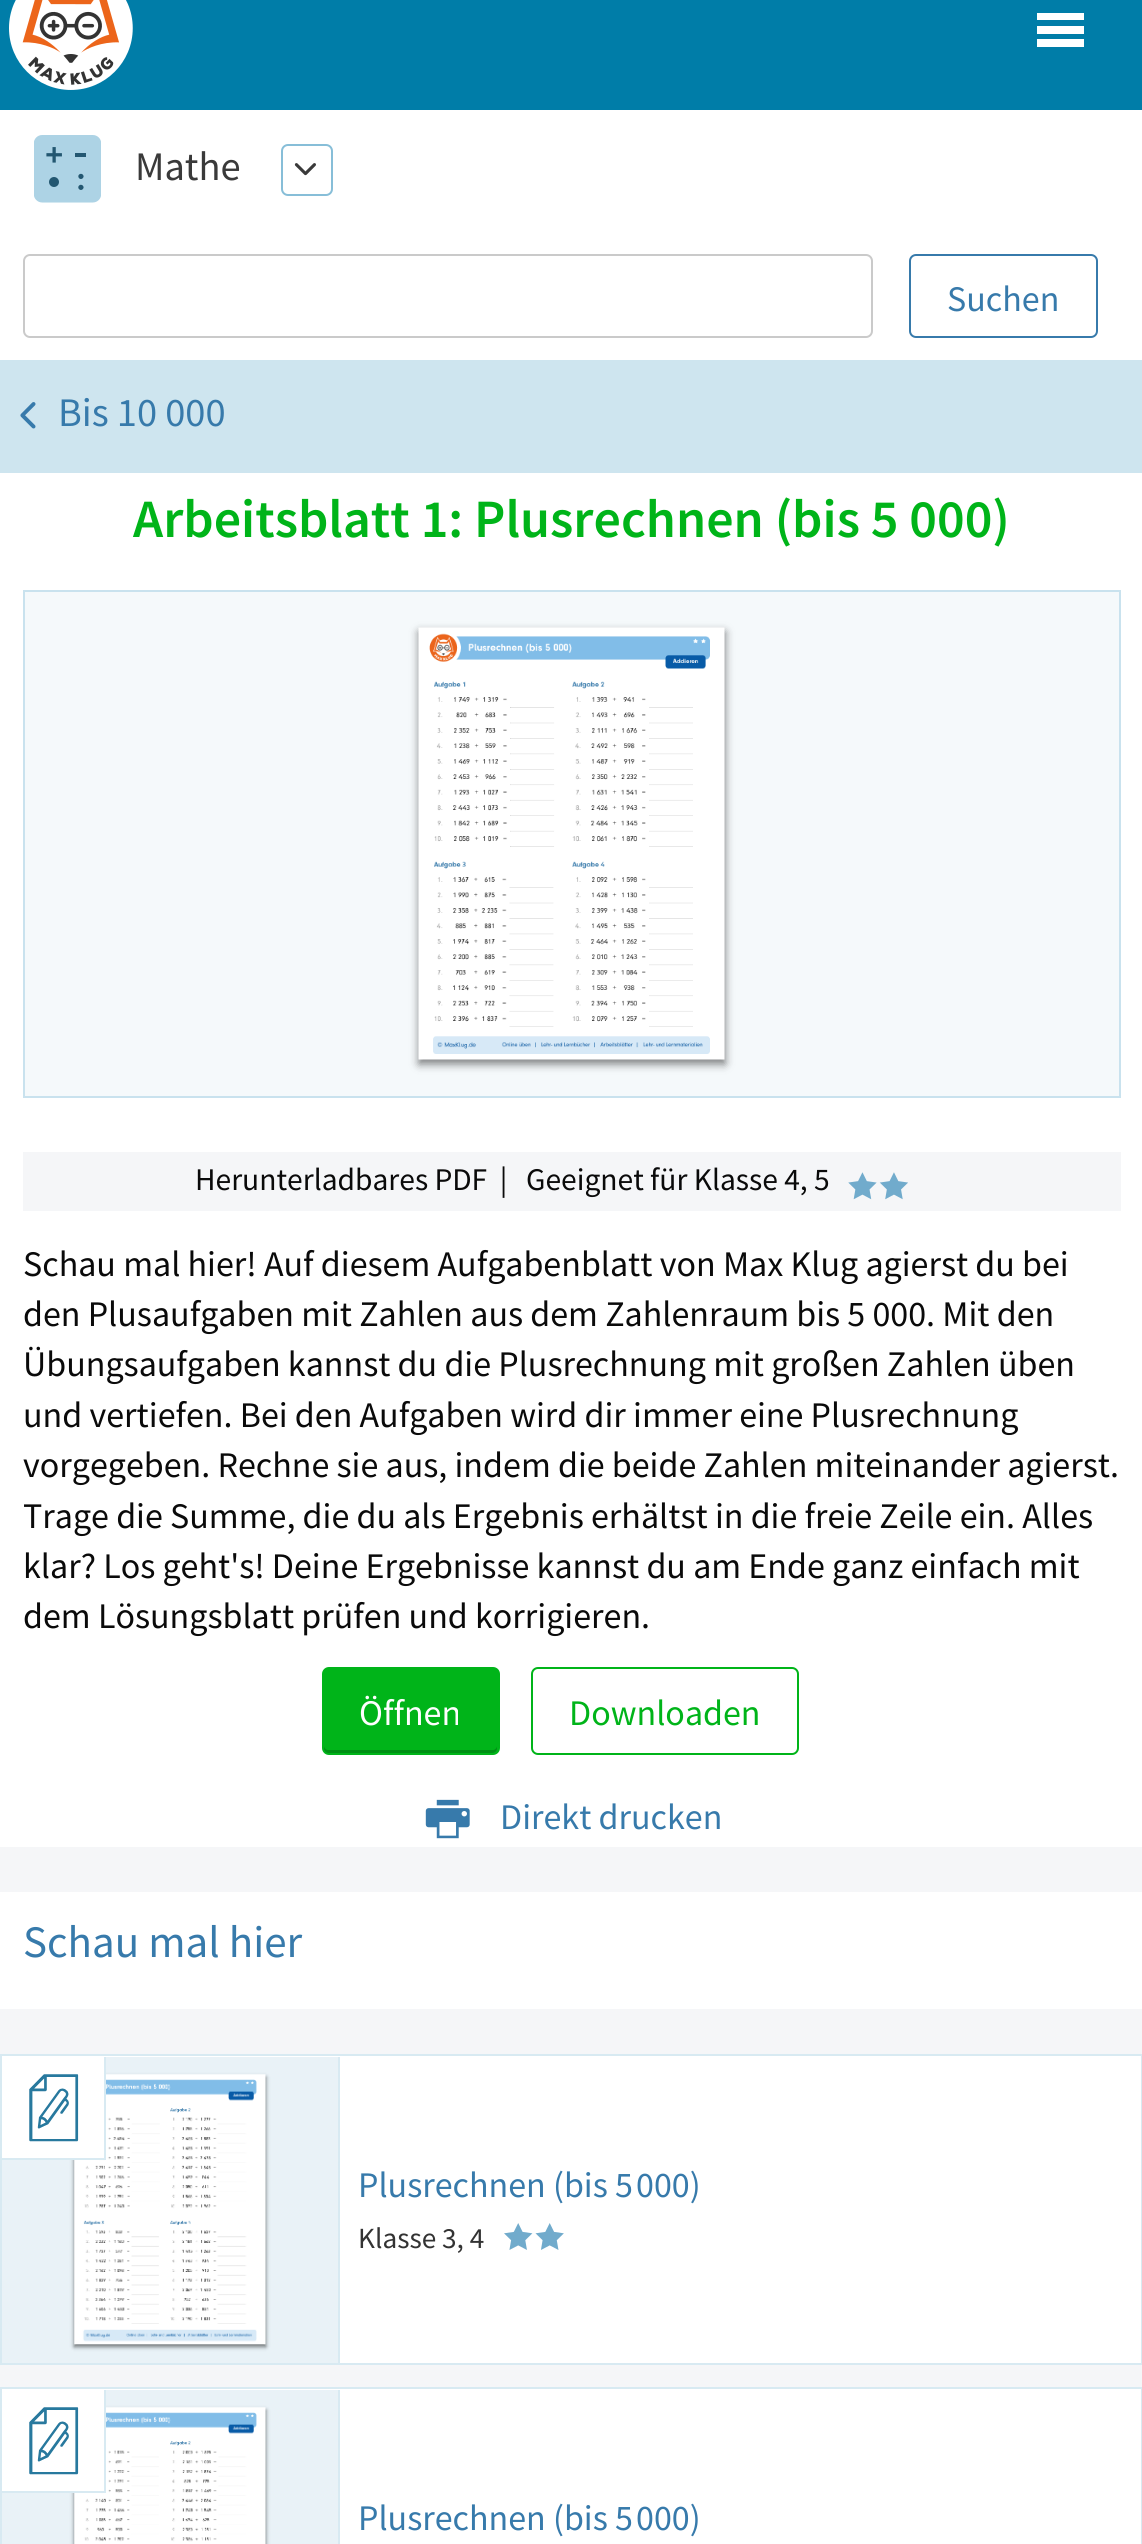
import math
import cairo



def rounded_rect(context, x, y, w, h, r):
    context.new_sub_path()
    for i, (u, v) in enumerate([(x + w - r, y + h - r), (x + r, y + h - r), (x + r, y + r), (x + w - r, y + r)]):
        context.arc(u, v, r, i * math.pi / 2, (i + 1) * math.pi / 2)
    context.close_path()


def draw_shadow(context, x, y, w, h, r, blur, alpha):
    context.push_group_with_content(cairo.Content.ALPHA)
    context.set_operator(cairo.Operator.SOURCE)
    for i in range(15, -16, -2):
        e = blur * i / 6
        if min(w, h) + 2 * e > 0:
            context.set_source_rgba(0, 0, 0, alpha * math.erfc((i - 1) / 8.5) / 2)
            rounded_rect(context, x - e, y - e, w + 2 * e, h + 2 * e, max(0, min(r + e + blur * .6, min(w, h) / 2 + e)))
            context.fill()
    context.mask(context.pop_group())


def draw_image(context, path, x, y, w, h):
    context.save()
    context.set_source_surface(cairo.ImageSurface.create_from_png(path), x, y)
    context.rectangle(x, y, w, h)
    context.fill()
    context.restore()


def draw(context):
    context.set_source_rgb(245 / 255, 246 / 255, 248 / 255)
    context.paint()
    context.set_source_rgb(0, 125 / 255, 168 / 255)
    context.rectangle(0, 0, 1142, 110)
    context.fill()
    context.set_source_rgb(1, 1, 1)
    context.new_path()
    context.move_to(1037, 13)
    context.line_to(1084, 13)
    context.line_to(1084, 20)
    context.line_to(1037, 20)
    context.close_path()
    context.move_to(1037, 26)
    context.line_to(1084, 26)
    context.line_to(1084, 34)
    context.line_to(1037, 34)
    context.close_path()
    context.move_to(1037, 39)
    context.line_to(1084, 39)
    context.line_to(1084, 47)
    context.line_to(1037, 47)
    context.close_path()
    context.fill()
    draw_image(context, "images/1.png", 9, 0, 124, 90)
    context.rectangle(0, 110, 1142, 250)
    context.fill()
    draw_image(context, "images/2.png", 34, 135, 67, 68)
    rounded_rect(context, 282, 145, 50, 50, 6)
    context.set_source_rgb(135 / 255, 190 / 255, 216 / 255)
    context.stroke()
    draw_image(context, "images/3.png", 294, 163, 22, 13)
    rounded_rect(context, 24, 255, 848, 82, 6)
    context.set_source_rgb(202 / 255, 202 / 255, 202 / 255)
    context.stroke()
    rounded_rect(context, 910, 255, 187, 82, 6)
    context.set_source_rgb(55 / 255, 122 / 255, 171 / 255)
    context.stroke()
    context.set_source_rgb(206 / 255, 229 / 255, 239 / 255)
    context.rectangle(0, 360, 1142, 113)
    context.fill()
    draw_image(context, "images/4.png", 20, 402, 16, 27)
    context.set_source_rgb(1, 1, 1)
    context.rectangle(0, 473, 1142, 1374)
    context.fill()
    context.set_source_rgb(245 / 255, 249 / 255, 251 / 255)
    context.rectangle(24, 591, 1096, 506)
    context.fill_preserve()
    context.set_source_rgb(201 / 255, 226 / 255, 238 / 255)
    context.stroke()
    context.set_source_rgb(0, 0, 0)
    draw_shadow(context, 419, 632, 306, 432, 0, 4.5, 0.5)
    draw_image(context, "images/5.png", 418, 627, 307, 433)
    context.set_source_rgb(245 / 255, 246 / 255, 248 / 255)
    context.rectangle(23, 1152, 1098, 59)
    context.fill()
    draw_image(context, "images/6.png", 848, 1172, 60, 28)
    context.set_source_rgb(0, 180 / 255, 25 / 255)
    rounded_rect(context, 322, 1667, 178, 88, 7)
    context.fill()
    context.set_source_rgb(0, 144 / 255, 20 / 255)
    context.new_path()
    context.move_to(324, 1746)
    context.line_to(324, 1748)
    context.curve_to(324, 1751, 326, 1753, 329, 1753)
    context.line_to(492, 1753)
    context.curve_to(495, 1753, 497, 1751, 497, 1748)
    context.line_to(497, 1746)
    context.curve_to(497, 1748, 495, 1750, 493, 1750)
    context.line_to(328, 1750)
    context.curve_to(326, 1750, 324, 1748, 324, 1746)
    context.close_path()
    context.fill()
    rounded_rect(context, 532, 1668, 266, 86, 6)
    context.set_source_rgb(0, 180 / 255, 25 / 255)
    context.stroke()
    draw_image(context, "images/7.png", 425, 1799, 45, 40)
    context.set_source_rgb(1, 1, 1)
    context.rectangle(0, 1892, 1142, 117)
    context.fill()
    context.rectangle(1, 2055, 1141, 309)
    context.fill_preserve()
    context.set_source_rgb(216 / 255, 234 / 255, 242 / 255)
    context.stroke()
    context.set_source_rgb(233 / 255, 242 / 255, 247 / 255)
    context.rectangle(2, 2057, 336, 306)
    context.fill()
    context.set_source_rgb(216 / 255, 234 / 255, 242 / 255)
    context.rectangle(338, 2057, 2, 306)
    context.fill()
    context.set_source_rgb(0, 0, 0)
    draw_shadow(context, 74, 2077, 192, 270, 0, 2, 0.5)
    draw_image(context, "images/8.png", 74, 2074, 192, 271)
    context.set_source_rgb(1, 1, 1)
    context.rectangle(2, 2057, 102, 101)
    context.fill()
    draw_image(context, "images/9.png", 29, 2074, 50, 68)
    context.set_source_rgb(216 / 255, 234 / 255, 242 / 255)
    context.rectangle(104, 2057, 2, 103)
    context.fill()
    context.rectangle(2, 2158, 104, 2)
    context.fill()
    draw_image(context, "images/10.png", 504, 2223, 60, 27)
    context.set_source_rgb(1, 1, 1)
    context.rectangle(1, 2388, 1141, 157)
    context.fill_preserve()
    context.set_source_rgb(216 / 255, 234 / 255, 242 / 255)
    context.stroke()
    context.set_source_rgb(233 / 255, 242 / 255, 247 / 255)
    context.rectangle(2, 2390, 336, 154)
    context.fill()
    context.set_source_rgb(216 / 255, 234 / 255, 242 / 255)
    context.rectangle(338, 2390, 2, 154)
    context.fill()
    context.set_source_rgb(0, 0, 0)
    draw_shadow(context, 74, 2410, 192, 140, 0, 2, 0.5)
    draw_image(context, "images/11.png", 74, 2407, 192, 137)
    context.set_source_rgb(1, 1, 1)
    context.rectangle(2, 2390, 102, 101)
    context.fill()
    draw_image(context, "images/9.png", 29, 2407, 50, 68)
    context.set_source_rgb(216 / 255, 234 / 255, 242 / 255)
    context.rectangle(104, 2390, 2, 103)
    context.fill()
    context.rectangle(2, 2491, 104, 2)
    context.fill()
    context.select_font_face("Source Sans Pro")
    context.set_font_size(40.5)
    context.set_source_rgb(58 / 255, 58 / 255, 58 / 255)
    context.move_to(135, 180)
    context.show_text("Mathe")
    context.set_font_size(36)
    context.set_source_rgb(55 / 255, 122 / 255, 171 / 255)
    context.move_to(947, 311)
    context.show_text("Suchen")
    context.set_font_size(40.5)
    context.move_to(58, 426)
    context.show_text("Bis 10 000")
    context.select_font_face("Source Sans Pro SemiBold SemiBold")
    context.set_font_size(54)
    context.set_source_rgb(0, 180 / 255, 25 / 255)
    context.move_to(133, 537)
    context.show_text("Arbeitsblatt 1: Plusrechnen (bis 5 000)")
    context.select_font_face("Source Sans Pro")
    context.set_font_size(31.5)
    context.set_source_rgb(10 / 255, 10 / 255, 10 / 255)
    context.move_to(195, 1190)
    context.show_text("Herunterladbares PDF  |")
    context.move_to(526, 1190)
    context.show_text("Geeignet für Klasse 4, 5")
    context.set_font_size(36)
    context.move_to(23, 1276)
    context.show_text("Schau mal hier! Auf diesem Aufgabenblatt von Max Klug agierst du bei")
    context.move_to(23, 1326)
    context.show_text("den Plusaufgaben mit Zahlen aus dem Zahlenraum bis 5 000. Mit den")
    context.move_to(23, 1376)
    context.show_text("Übungsaufgaben kannst du die Plusrechnung mit großen Zahlen üben")
    context.move_to(23, 1427)
    context.show_text("und vertiefen. Bei den Aufgaben wird dir immer eine Plusrechnung")
    context.move_to(23, 1477)
    context.show_text("vorgegeben. Rechne sie aus, indem die beide Zahlen miteinander agierst.")
    context.move_to(23, 1528)
    context.show_text("Trage die Summe, die du als Ergebnis erhältst in die freie Zeile ein. Alles")
    context.move_to(23, 1578)
    context.show_text("klar? Los geht's! Deine Ergebnisse kannst du am Ende ganz einfach mit")
    context.move_to(23, 1628)
    context.show_text("dem Lösungsblatt prüfen und korrigieren.")
    context.set_source_rgb(254 / 255, 254 / 255, 254 / 255)
    context.move_to(359, 1725)
    context.show_text("Öffnen")
    context.set_source_rgb(0, 180 / 255, 25 / 255)
    context.move_to(569, 1725)
    context.show_text("Downloaden")
    context.set_source_rgb(55 / 255, 122 / 255, 171 / 255)
    context.move_to(500, 1829)
    context.show_text("Direkt drucken")
    context.set_font_size(45)
    context.move_to(23, 1957)
    context.show_text("Schau mal hier")
    context.set_font_size(36)
    context.move_to(358, 2197)
    context.show_text("Plusrechnen (bis 5")
    context.move_to(636, 2197)
    context.show_text("000)")
    context.set_font_size(29.25)
    context.set_source_rgb(51 / 255, 51 / 255, 51 / 255)
    context.move_to(358, 2248)
    context.show_text("Klasse 3, 4")
    context.set_font_size(36)
    context.set_source_rgb(55 / 255, 122 / 255, 171 / 255)
    context.move_to(358, 2530)
    context.show_text("Plusrechnen (bis 5")
    context.move_to(636, 2530)
    context.show_text("000)")


surface = cairo.ImageSurface(cairo.Format.RGB24, 1142, 2544)
context = cairo.Context(surface)
options = cairo.FontOptions()
options.set_hint_metrics(cairo.HintMetrics.OFF)
options.set_hint_style(cairo.HintStyle.NONE)
context.set_font_options(options)
context.set_miter_limit(4)
draw(context)
surface.write_to_png("out.png")
